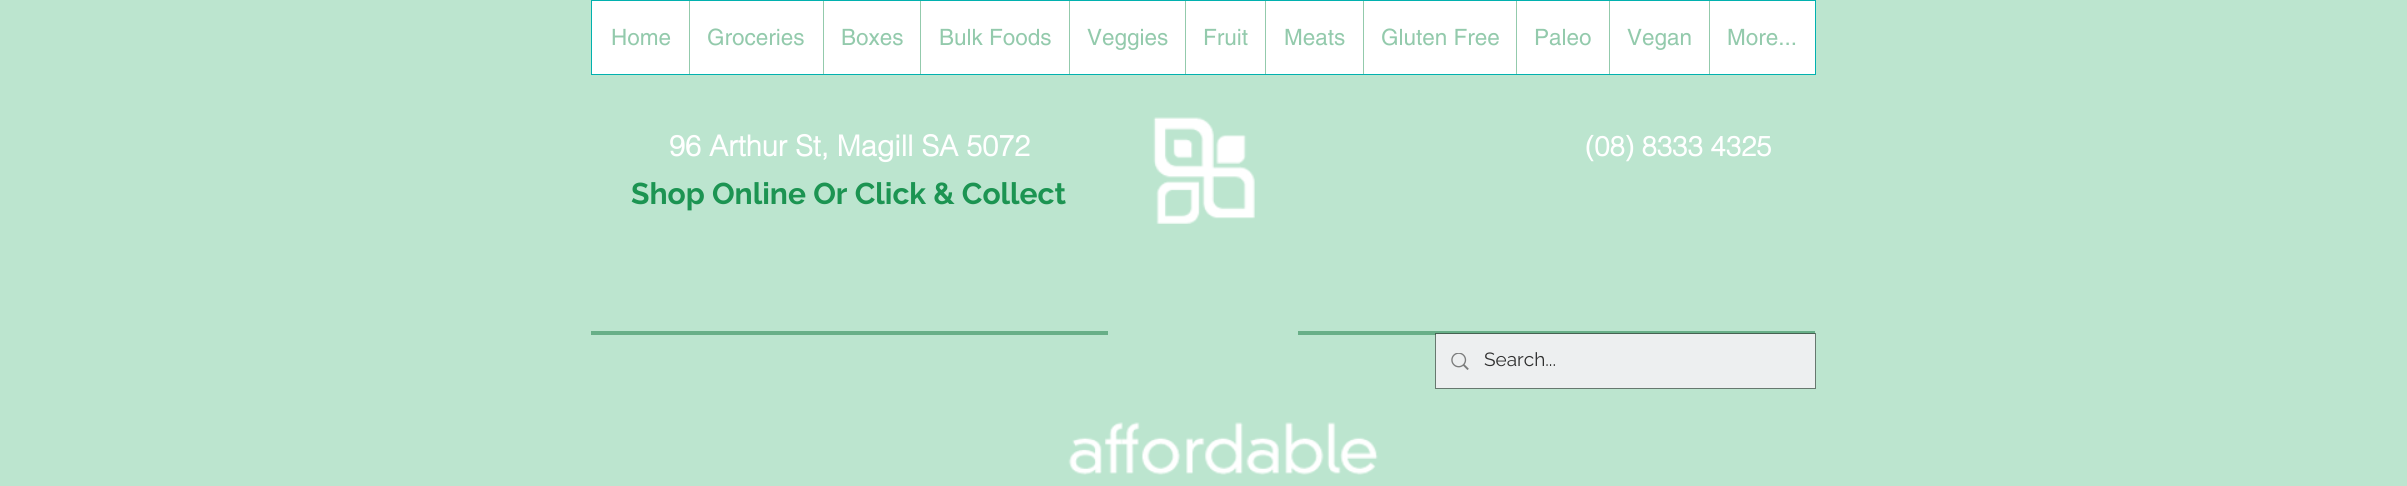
import math
import cairo



def draw_image(context, path, x, y, w, h):
    context.save()
    context.set_source_surface(cairo.ImageSurface.create_from_png(path), x, y)
    context.rectangle(x, y, w, h)
    context.fill()
    context.restore()


def draw(context):
    context.set_source_rgb(188 / 255, 229 / 255, 207 / 255)
    context.paint()
    context.set_source_rgb(1, 1, 1)
    context.rectangle(591.5, 0.5, 1224, 74)
    context.fill_preserve()
    context.set_source_rgb(1 / 255, 177 / 255, 175 / 255)
    context.set_line_width(1)
    context.stroke()
    context.set_source_rgb(147 / 255, 202 / 255, 172 / 255)
    context.rectangle(689, 1, 1, 73)
    context.fill()
    context.rectangle(823, 1, 1, 73)
    context.fill()
    context.rectangle(920, 1, 1, 73)
    context.fill()
    context.rectangle(1069, 1, 1, 73)
    context.fill()
    context.rectangle(1185, 1, 1, 73)
    context.fill()
    context.rectangle(1265, 1, 1, 73)
    context.fill()
    context.rectangle(1363, 1, 1, 73)
    context.fill()
    context.rectangle(1516, 1, 1, 73)
    context.fill()
    context.rectangle(1609, 1, 1, 73)
    context.fill()
    context.rectangle(1709, 1, 1, 73)
    context.fill()
    draw_image(context, "images/1.png", 1153, 117, 102, 107)
    context.set_source_rgb(104 / 255, 175 / 255, 136 / 255)
    context.rectangle(591, 331, 517, 4)
    context.fill()
    context.rectangle(1298, 331, 517, 4)
    context.fill()
    context.rectangle(1435.5, 333.5, 380, 55)
    context.set_source_rgba(47 / 255, 47 / 255, 47 / 255, 0.6)
    context.stroke()
    context.set_source_rgb(237 / 255, 239 / 255, 240 / 255)
    context.rectangle(1436, 334, 379, 54)
    context.fill()
    draw_image(context, "images/2.png", 1451, 353, 18, 17)
    draw_image(context, "images/3.png", 1068, 422, 310, 53)
    context.select_font_face("helvetica")
    context.set_font_size(22.5)
    context.set_source_rgb(147 / 255, 202 / 255, 172 / 255)
    context.move_to(611, 45)
    context.show_text("Home")
    context.move_to(707, 45)
    context.show_text("Groceries")
    context.move_to(841, 45)
    context.show_text("Boxes")
    context.move_to(939, 45)
    context.show_text("Bulk Foods")
    context.move_to(1087, 45)
    context.show_text("Veggies")
    context.move_to(1203, 45)
    context.show_text("Fruit")
    context.move_to(1284, 45)
    context.show_text("Meats")
    context.move_to(1381, 45)
    context.show_text("Gluten Free")
    context.move_to(1534, 45)
    context.show_text("Paleo")
    context.move_to(1627, 45)
    context.show_text("Vegan")
    context.move_to(1727, 45)
    context.show_text("More...")
    context.select_font_face("helvetica", cairo.FontSlant.NORMAL, cairo.FontWeight.BOLD)
    context.set_font_size(28.75)
    context.set_source_rgb(1, 1, 1)
    context.move_to(669, 156)
    context.show_text("96 Arthur St, Magill SA 5072")
    context.set_font_size(27.5)
    context.move_to(1585, 156)
    context.show_text("(08) 8333 4325")
    context.select_font_face("Raleway", cairo.FontSlant.NORMAL, cairo.FontWeight.BOLD)
    context.set_font_size(30)
    context.set_source_rgb(28 / 255, 148 / 255, 82 / 255)
    context.move_to(631, 204)
    context.show_text("Shop Online Or Click & Collect")
    context.select_font_face("Raleway")
    context.set_font_size(19)
    context.set_source_rgb(47 / 255, 47 / 255, 47 / 255)
    context.move_to(1484, 366)
    context.show_text("Search...")


surface = cairo.ImageSurface(cairo.Format.RGB24, 2407, 486)
context = cairo.Context(surface)
options = cairo.FontOptions()
options.set_hint_metrics(cairo.HintMetrics.OFF)
options.set_hint_style(cairo.HintStyle.NONE)
context.set_font_options(options)
context.set_miter_limit(4)
draw(context)
surface.write_to_png("out.png")
